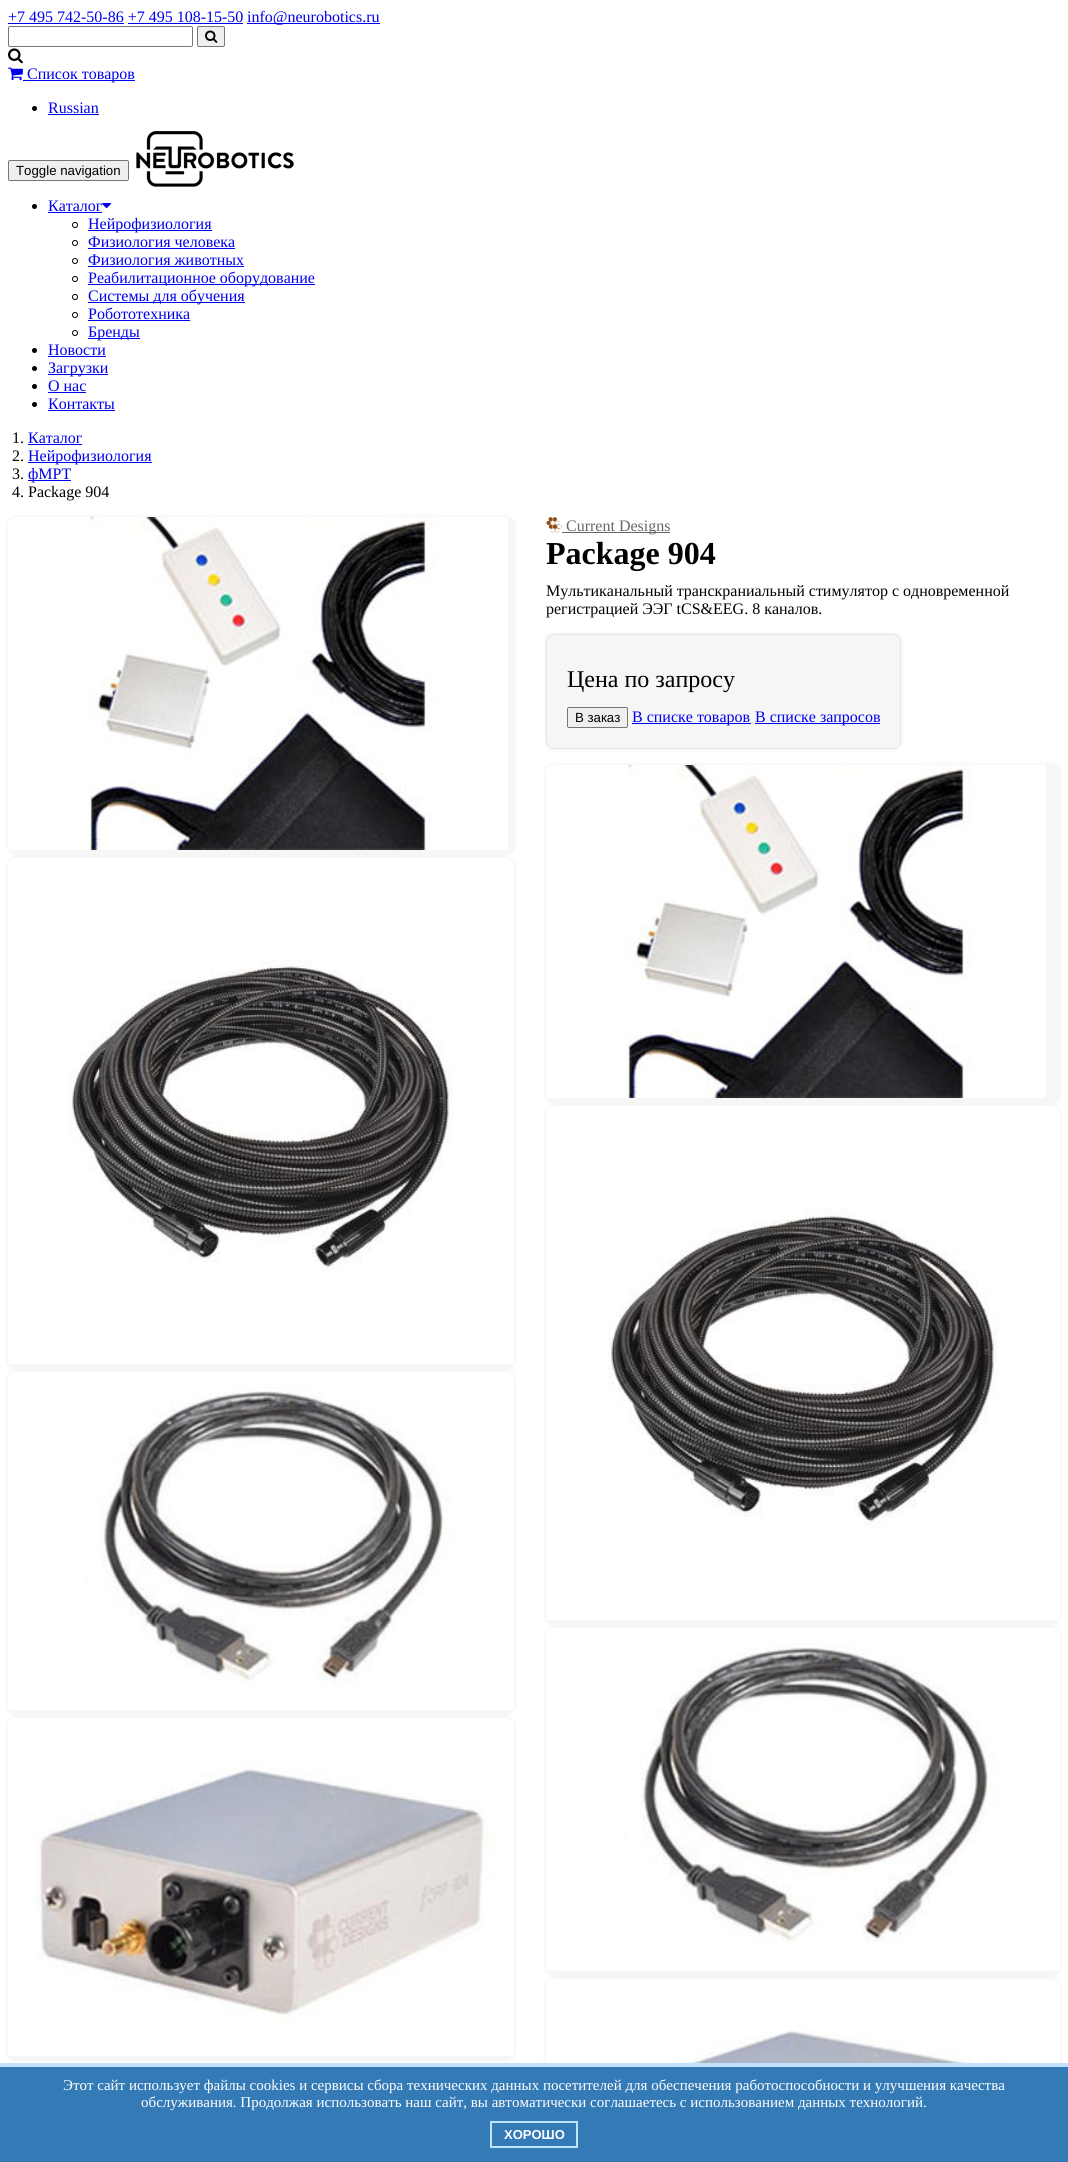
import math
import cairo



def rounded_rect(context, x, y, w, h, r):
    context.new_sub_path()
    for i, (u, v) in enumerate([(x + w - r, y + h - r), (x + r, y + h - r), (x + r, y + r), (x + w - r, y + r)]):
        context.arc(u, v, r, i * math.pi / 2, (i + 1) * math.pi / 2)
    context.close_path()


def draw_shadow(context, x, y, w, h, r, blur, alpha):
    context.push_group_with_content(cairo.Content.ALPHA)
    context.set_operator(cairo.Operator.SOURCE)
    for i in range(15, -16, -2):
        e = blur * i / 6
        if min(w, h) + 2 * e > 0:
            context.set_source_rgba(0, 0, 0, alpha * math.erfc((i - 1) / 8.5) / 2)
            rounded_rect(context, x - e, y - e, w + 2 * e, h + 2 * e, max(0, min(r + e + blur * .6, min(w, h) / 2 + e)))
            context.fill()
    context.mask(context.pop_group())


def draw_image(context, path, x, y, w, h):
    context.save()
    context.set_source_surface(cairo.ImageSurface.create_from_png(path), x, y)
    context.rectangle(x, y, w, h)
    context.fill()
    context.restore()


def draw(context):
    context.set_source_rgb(1, 1, 1)
    context.paint()
    context.set_source_rgb(0, 0, 238 / 255)
    context.rectangle(8, 23, 116, 1)
    context.fill()
    context.rectangle(247, 23, 133, 1)
    context.fill()
    context.rectangle(128, 23, 115, 1)
    context.fill()
    rounded_rect(context, 8.5, 26.5, 184, 20, 1.5)
    context.set_source_rgb(118 / 255, 118 / 255, 118 / 255)
    context.set_line_width(1)
    context.stroke()
    context.set_source_rgb(239 / 255, 239 / 255, 239 / 255)
    rounded_rect(context, 197.5, 26.5, 27, 20, 1.5)
    context.fill_preserve()
    context.set_source_rgb(118 / 255, 118 / 255, 118 / 255)
    context.stroke()
    draw_image(context, "images/1.png", 205, 30, 13, 13)
    draw_image(context, "images/2.png", 8, 48, 15, 16)
    draw_image(context, "images/3.png", 8, 67, 15, 14)
    context.set_source_rgb(0, 0, 238 / 255)
    context.rectangle(23, 80, 112, 1)
    context.fill()
    context.set_source_rgb(0, 0, 0)
    context.arc(34.5, 108.5, 2.5, 0, 2 * math.pi)
    context.fill()
    context.set_source_rgb(0, 0, 238 / 255)
    context.rectangle(48, 114, 51, 1)
    context.fill()
    context.set_source_rgb(239 / 255, 239 / 255, 239 / 255)
    rounded_rect(context, 8.5, 160.5, 120, 20, 1.5)
    context.fill_preserve()
    context.set_source_rgb(118 / 255, 118 / 255, 118 / 255)
    context.stroke()
    draw_image(context, "images/4.png", 136, 131, 158, 56)
    context.set_source_rgb(0, 0, 0)
    context.arc(34.5, 206.5, 2.5, 0, 2 * math.pi)
    context.fill()
    context.set_source_rgb(0, 0, 238 / 255)
    context.rectangle(48, 212, 54, 1)
    context.fill()
    draw_image(context, "images/5.png", 102, 203, 10, 6)
    context.arc(75, 225, 2.5, 0, 2 * math.pi)
    context.set_source_rgb(0, 0, 0)
    context.stroke()
    context.set_source_rgb(0, 0, 238 / 255)
    context.rectangle(88, 230, 124, 1)
    context.fill()
    context.arc(75, 243, 2.5, 0, 2 * math.pi)
    context.set_source_rgb(0, 0, 0)
    context.stroke()
    context.set_source_rgb(0, 0, 238 / 255)
    context.rectangle(88, 248, 147, 1)
    context.fill()
    context.arc(75, 261, 2.5, 0, 2 * math.pi)
    context.set_source_rgb(0, 0, 0)
    context.stroke()
    context.set_source_rgb(0, 0, 238 / 255)
    context.rectangle(88, 266, 156, 1)
    context.fill()
    context.arc(75, 279, 2.5, 0, 2 * math.pi)
    context.set_source_rgb(0, 0, 0)
    context.stroke()
    context.set_source_rgb(0, 0, 238 / 255)
    context.rectangle(88, 284, 227, 1)
    context.fill()
    context.arc(75, 297, 2.5, 0, 2 * math.pi)
    context.set_source_rgb(0, 0, 0)
    context.stroke()
    context.set_source_rgb(0, 0, 238 / 255)
    context.rectangle(88, 302, 157, 1)
    context.fill()
    context.arc(75, 315, 2.5, 0, 2 * math.pi)
    context.set_source_rgb(0, 0, 0)
    context.stroke()
    context.set_source_rgb(0, 0, 238 / 255)
    context.rectangle(88, 320, 102, 1)
    context.fill()
    context.arc(75, 333, 2.5, 0, 2 * math.pi)
    context.set_source_rgb(0, 0, 0)
    context.stroke()
    context.set_source_rgb(0, 0, 238 / 255)
    context.rectangle(88, 338, 52, 1)
    context.fill()
    context.set_source_rgb(0, 0, 0)
    context.arc(34.5, 350.5, 2.5, 0, 2 * math.pi)
    context.fill()
    context.set_source_rgb(0, 0, 238 / 255)
    context.rectangle(48, 356, 58, 1)
    context.fill()
    context.set_source_rgb(0, 0, 0)
    context.arc(34.5, 368.5, 2.5, 0, 2 * math.pi)
    context.fill()
    context.set_source_rgb(0, 0, 238 / 255)
    context.rectangle(48, 374, 60, 1)
    context.fill()
    context.set_source_rgb(0, 0, 0)
    context.arc(34.5, 386.5, 2.5, 0, 2 * math.pi)
    context.fill()
    context.set_source_rgb(0, 0, 238 / 255)
    context.rectangle(48, 392, 38, 1)
    context.fill()
    context.set_source_rgb(0, 0, 0)
    context.arc(34.5, 404.5, 2.5, 0, 2 * math.pi)
    context.fill()
    context.set_source_rgb(0, 0, 238 / 255)
    context.rectangle(48, 410, 67, 1)
    context.fill()
    context.rectangle(28, 444, 54, 1)
    context.fill()
    context.rectangle(28, 462, 124, 1)
    context.fill()
    context.rectangle(28, 480, 43, 1)
    context.fill()
    context.set_source_rgb(0, 0, 0)
    draw_shadow(context, 8, 517, 506, 337, 8, 2.5, 0.08)
    context.set_source_rgb(246 / 255, 246 / 255, 246 / 255)
    rounded_rect(context, 8, 517, 506, 337, 8)
    context.fill()
    draw_image(context, "images/6.png", 8, 517, 500, 333)
    context.set_source_rgb(0, 0, 0)
    draw_shadow(context, 8, 858, 506, 510, 8, 2.5, 0.08)
    context.set_source_rgb(246 / 255, 246 / 255, 246 / 255)
    rounded_rect(context, 8, 858, 506, 510, 8)
    context.fill()
    draw_image(context, "images/7.png", 8, 858, 506, 506)
    context.set_source_rgb(0, 0, 0)
    draw_shadow(context, 8, 1372, 506, 342, 8, 2.5, 0.08)
    context.set_source_rgb(246 / 255, 246 / 255, 246 / 255)
    rounded_rect(context, 8, 1372, 506, 342, 8)
    context.fill()
    draw_image(context, "images/8.png", 8, 1372, 506, 338)
    context.set_source_rgb(0, 0, 0)
    draw_shadow(context, 8, 1718, 506, 342, 8, 2.5, 0.08)
    context.set_source_rgb(246 / 255, 246 / 255, 246 / 255)
    rounded_rect(context, 8, 1718, 506, 342, 8)
    context.fill()
    draw_image(context, "images/9.png", 8, 1718, 506, 338)
    draw_image(context, "images/10.png", 546, 517, 16, 16)
    context.set_source_rgb(102 / 255, 102 / 255, 102 / 255)
    context.rectangle(562, 532, 108, 1)
    context.fill()
    context.set_source_rgb(0, 0, 0)
    draw_shadow(context, 546, 634, 355, 115, 8, 2.5, 0.08)
    context.set_source_rgb(246 / 255, 246 / 255, 246 / 255)
    rounded_rect(context, 546.5, 634.5, 354, 114, 7.5)
    context.fill_preserve()
    context.set_source_rgb(230 / 255, 230 / 255, 230 / 255)
    context.stroke()
    context.set_source_rgb(239 / 255, 239 / 255, 239 / 255)
    rounded_rect(context, 567.5, 707.5, 60, 20, 1.5)
    context.fill_preserve()
    context.set_source_rgb(118 / 255, 118 / 255, 118 / 255)
    context.stroke()
    context.set_source_rgb(0, 0, 238 / 255)
    context.rectangle(632, 723, 119, 1)
    context.fill()
    context.rectangle(755, 723, 125, 1)
    context.fill()
    context.set_source_rgb(0, 0, 0)
    draw_shadow(context, 546, 765, 514, 337, 8, 2.5, 0.08)
    context.set_source_rgb(246 / 255, 246 / 255, 246 / 255)
    rounded_rect(context, 546, 765, 514, 337, 8)
    context.fill()
    draw_image(context, "images/11.png", 546, 765, 500, 333)
    context.set_source_rgb(0, 0, 0)
    draw_shadow(context, 546, 1106, 514, 518, 8, 2.5, 0.08)
    context.set_source_rgb(246 / 255, 246 / 255, 246 / 255)
    rounded_rect(context, 546, 1106, 514, 518, 8)
    context.fill()
    draw_image(context, "images/12.png", 546, 1106, 514, 514)
    context.set_source_rgb(0, 0, 0)
    draw_shadow(context, 546, 1628, 514, 347, 8, 2.5, 0.08)
    context.set_source_rgb(246 / 255, 246 / 255, 246 / 255)
    rounded_rect(context, 546, 1628, 514, 347, 8)
    context.fill()
    draw_image(context, "images/13.png", 546, 1628, 514, 343)
    context.set_source_rgb(0, 0, 0)
    draw_shadow(context, 546, 1979, 514, 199, 8, 2.5, 0.08)
    draw_image(context, "images/14.png", 546, 1979, 514, 84)
    context.set_source_rgb(51 / 255, 122 / 255, 183 / 255)
    context.rectangle(0, 2067, 1068, 95)
    context.fill()
    context.set_source_rgb(191 / 255, 226 / 255, 1)
    context.rectangle(0, 2063, 1068, 4)
    context.fill()
    context.rectangle(491, 2122, 86, 25)
    context.set_line_width(2)
    context.stroke()
    context.select_font_face("Liberation Serif")
    context.set_font_size(16)
    context.set_source_rgb(0, 0, 238 / 255)
    context.move_to(8, 22)
    context.show_text("+7 495 742-50-86 +7 495 108-15-50")
    context.move_to(247, 22)
    context.show_text("info@neurobotics.ru")
    context.move_to(27, 79)
    context.show_text("Список товаров")
    context.move_to(48, 113)
    context.show_text("Russian")
    context.select_font_face("Liberation Sans")
    context.set_font_size(13.25)
    context.set_source_rgb(0, 0, 0)
    context.move_to(16, 175)
    context.show_text("Toggle navigation")
    context.select_font_face("Liberation Serif")
    context.set_font_size(16)
    context.set_source_rgb(0, 0, 238 / 255)
    context.move_to(48, 211)
    context.show_text("Каталог")
    context.move_to(88, 229)
    context.show_text("Нейрофизиология")
    context.move_to(88, 247)
    context.show_text("Физиология человека")
    context.move_to(88, 265)
    context.show_text("Физиология животных")
    context.move_to(88, 283)
    context.show_text("Реабилитационное оборудование")
    context.move_to(88, 301)
    context.show_text("Системы для обучения")
    context.move_to(88, 319)
    context.show_text("Робототехника")
    context.move_to(88, 337)
    context.show_text("Бренды")
    context.move_to(48, 355)
    context.show_text("Новости")
    context.move_to(48, 373)
    context.show_text("Загрузки")
    context.move_to(48, 391)
    context.show_text("О нас")
    context.move_to(48, 409)
    context.show_text("Контакты")
    context.set_source_rgb(0, 0, 0)
    context.move_to(12, 443)
    context.show_text("1.")
    context.set_source_rgb(0, 0, 238 / 255)
    context.move_to(28, 443)
    context.show_text("Каталог")
    context.set_source_rgb(0, 0, 0)
    context.move_to(12, 461)
    context.show_text("2.")
    context.set_source_rgb(0, 0, 238 / 255)
    context.move_to(28, 461)
    context.show_text("Нейрофизиология")
    context.set_source_rgb(0, 0, 0)
    context.move_to(12, 479)
    context.show_text("3.")
    context.set_source_rgb(0, 0, 238 / 255)
    context.move_to(28, 479)
    context.show_text("фМРТ")
    context.set_source_rgb(0, 0, 0)
    context.move_to(12, 497)
    context.show_text("4. Package 904")
    context.set_source_rgb(102 / 255, 102 / 255, 102 / 255)
    context.move_to(566, 531)
    context.show_text("Current Designs")
    context.select_font_face("Liberation Serif", cairo.FontSlant.NORMAL, cairo.FontWeight.BOLD)
    context.set_font_size(32)
    context.set_source_rgb(0, 0, 0)
    context.move_to(546, 564)
    context.show_text("Package 904")
    context.select_font_face("Liberation Serif")
    context.set_font_size(16)
    context.move_to(546, 596)
    context.show_text("Мультиканальный транскраниальный стимулятор с одновременной")
    context.move_to(546, 614)
    context.show_text("регистрацией ЭЭГ tCS&EEG. 8 каналов.")
    context.set_font_size(24)
    context.move_to(567, 687)
    context.show_text("Цена по запросу")
    context.select_font_face("Liberation Sans")
    context.set_font_size(13.25)
    context.move_to(575, 722)
    context.show_text("В заказ")
    context.select_font_face("Liberation Serif")
    context.set_font_size(16)
    context.set_source_rgb(0, 0, 238 / 255)
    context.move_to(632, 722)
    context.show_text("В списке товаров")
    context.move_to(755, 722)
    context.show_text("В списке запросов")
    context.set_font_size(15)
    context.set_source_rgb(1, 1, 1)
    context.move_to(63, 2090)
    context.show_text("Этот сайт использует файлы cookies и сервисы сбора технических данных посетителей для обеспечения работоспособности и улучшения качества")
    context.move_to(141, 2107)
    context.show_text("обслуживания. Продолжая использовать наш сайт, вы автоматически соглашаетесь с использованием данных технологий.")
    context.select_font_face("Liberation Sans", cairo.FontSlant.NORMAL, cairo.FontWeight.BOLD)
    context.set_font_size(13)
    context.move_to(504, 2139)
    context.show_text("ХОРОШО")


surface = cairo.ImageSurface(cairo.Format.RGB24, 1068, 2162)
context = cairo.Context(surface)
options = cairo.FontOptions()
options.set_hint_metrics(cairo.HintMetrics.OFF)
options.set_hint_style(cairo.HintStyle.NONE)
context.set_font_options(options)
context.set_miter_limit(4)
draw(context)
surface.write_to_png("out.png")
